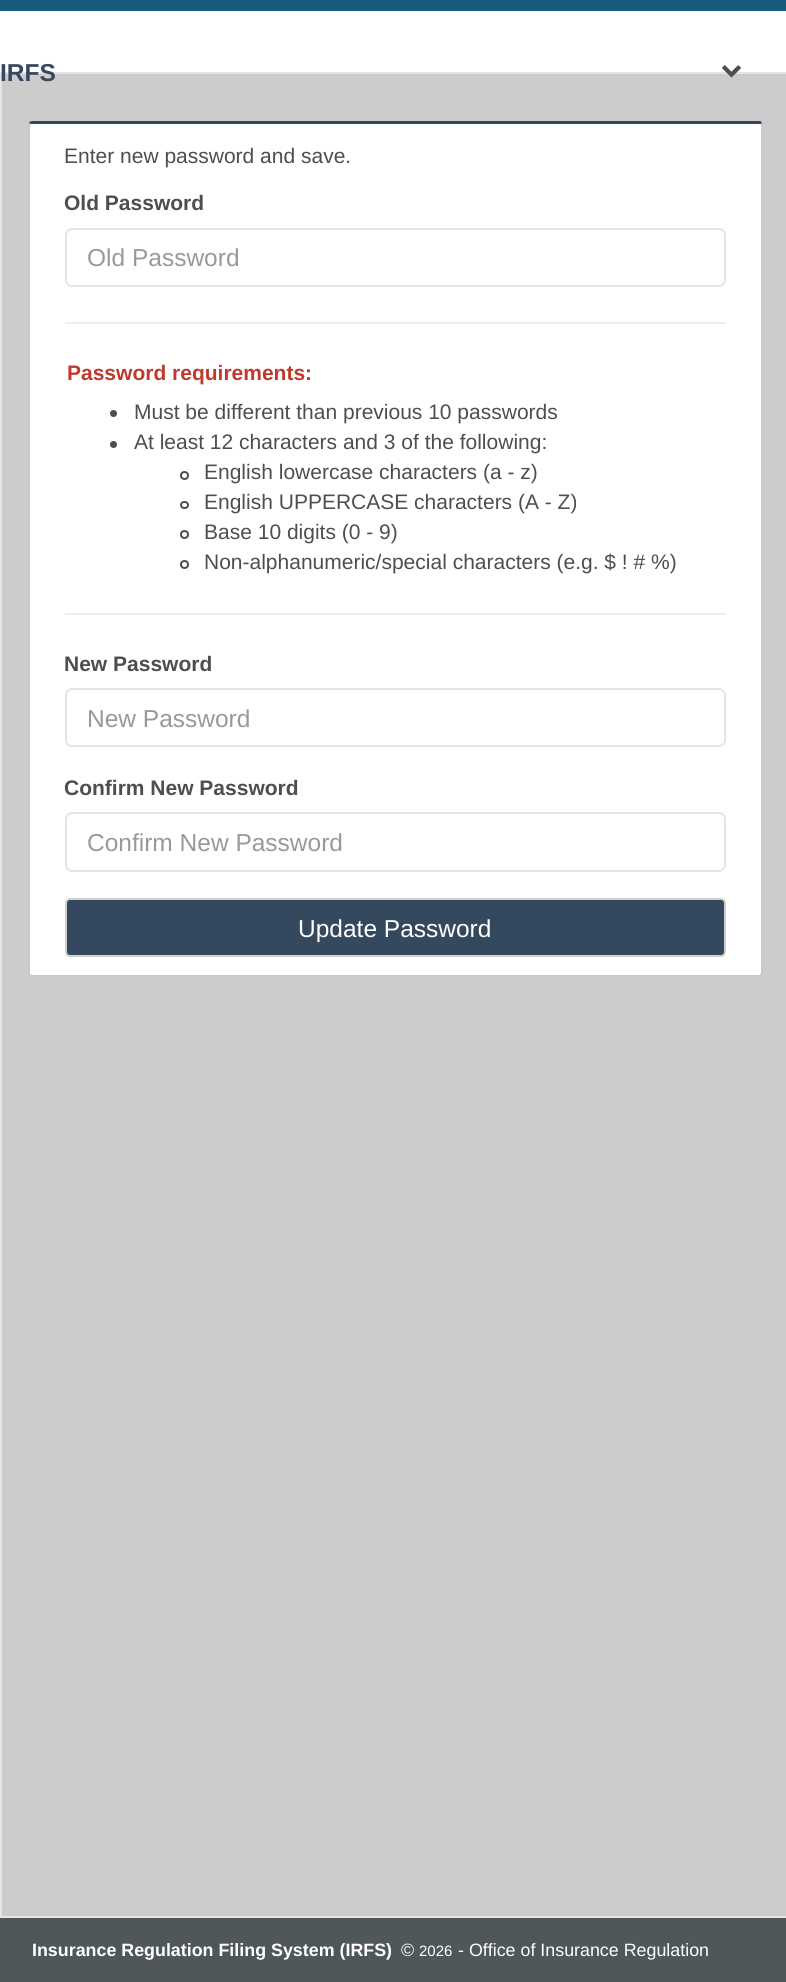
import math
import cairo



def rounded_rect(context, x, y, w, h, r):
    context.new_sub_path()
    for i, (u, v) in enumerate([(x + w - r, y + h - r), (x + r, y + h - r), (x + r, y + r), (x + w - r, y + r)]):
        context.arc(u, v, r, i * math.pi / 2, (i + 1) * math.pi / 2)
    context.close_path()


def draw_image(context, path, x, y, w, h):
    context.save()
    context.set_source_surface(cairo.ImageSurface.create_from_png(path), x, y)
    context.rectangle(x, y, w, h)
    context.fill()
    context.restore()


def draw(context):
    context.set_source_rgb(1, 1, 1)
    context.paint()
    context.set_source_rgb(228 / 255, 229 / 255, 231 / 255)
    context.rectangle(0, 72, 786, 2)
    context.fill()
    context.set_source_rgb(22 / 255, 92 / 255, 125 / 255)
    context.rectangle(0, 0, 786, 11)
    context.fill()
    context.set_source_rgb(204 / 255, 204 / 255, 204 / 255)
    context.rectangle(2, 74, 784, 1842)
    context.fill()
    draw_image(context, "images/1.png", 722, 65, 19, 13)
    context.set_source_rgb(228 / 255, 229 / 255, 231 / 255)
    context.rectangle(0, 74, 2, 1842)
    context.fill()
    context.set_source_rgb(1, 1, 1)
    context.new_path()
    context.move_to(32, 124)
    context.line_to(761, 124)
    context.line_to(761, 973)
    context.curve_to(761, 974, 760, 975, 760, 975)
    context.line_to(32, 975)
    context.curve_to(31, 975, 30, 974, 30, 973)
    context.line_to(30, 124)
    context.close_path()
    context.fill()
    context.set_source_rgb(52 / 255, 73 / 255, 94 / 255)
    context.new_path()
    context.move_to(32, 121)
    context.line_to(29, 122)
    context.line_to(30, 125)
    context.line_to(30, 124)
    context.line_to(761, 124)
    context.line_to(761, 125)
    context.line_to(762, 122)
    context.line_to(760, 121)
    context.close_path()
    context.fill()
    context.set_source_rgb(200 / 255, 200 / 255, 200 / 255)
    context.new_path()
    context.move_to(762, 122)
    context.line_to(763, 124)
    context.line_to(763, 973)
    context.line_to(762, 975)
    context.line_to(761, 974)
    context.line_to(761, 973)
    context.line_to(761, 125)
    context.close_path()
    context.fill()
    context.new_path()
    context.move_to(762, 975)
    context.line_to(760, 976)
    context.line_to(32, 976)
    context.line_to(29, 975)
    context.line_to(30, 974)
    context.line_to(32, 975)
    context.line_to(760, 975)
    context.line_to(761, 974)
    context.close_path()
    context.fill()
    context.new_path()
    context.move_to(28, 124)
    context.line_to(28, 973)
    context.line_to(29, 975)
    context.line_to(30, 974)
    context.line_to(30, 973)
    context.line_to(30, 125)
    context.line_to(29, 122)
    context.close_path()
    context.fill()
    rounded_rect(context, 66, 229, 659, 57, 6)
    context.set_source_rgb(228 / 255, 229 / 255, 231 / 255)
    context.stroke()
    context.set_source_rgb(238 / 255, 238 / 255, 238 / 255)
    context.rectangle(65, 322, 661, 2)
    context.fill()
    context.set_source_rgb(78 / 255, 78 / 255, 78 / 255)
    context.arc(113.5, 413.5, 3.5, 0, 2 * math.pi)
    context.fill()
    context.arc(113.5, 444.5, 3.5, 0, 2 * math.pi)
    context.fill()
    context.arc(184.5, 475.5, 3.5, 0, 2 * math.pi)
    context.stroke()
    rounded_rect(context, 181, 502, 7, 6, 3)
    context.stroke()
    context.arc(184.5, 534.5, 3.5, 0, 2 * math.pi)
    context.stroke()
    context.arc(184.5, 564.5, 3.5, 0, 2 * math.pi)
    context.stroke()
    context.set_source_rgb(238 / 255, 238 / 255, 238 / 255)
    context.rectangle(65, 613, 661, 2)
    context.fill()
    rounded_rect(context, 66, 689, 659, 57, 6)
    context.set_source_rgb(228 / 255, 229 / 255, 231 / 255)
    context.stroke()
    rounded_rect(context, 66, 813, 659, 58, 6)
    context.stroke()
    context.set_source_rgb(52 / 255, 73 / 255, 94 / 255)
    rounded_rect(context, 66, 899, 659, 57, 4)
    context.fill_preserve()
    context.set_source_rgb(208 / 255, 208 / 255, 208 / 255)
    context.stroke()
    context.set_source_rgb(80 / 255, 87 / 255, 89 / 255)
    context.rectangle(0, 1918, 786, 64)
    context.fill()
    context.set_source_rgb(228 / 255, 229 / 255, 231 / 255)
    context.rectangle(0, 1916, 786, 2)
    context.fill()
    context.select_font_face("Liberation Sans", cairo.FontSlant.NORMAL, cairo.FontWeight.BOLD)
    context.set_font_size(24.5)
    context.set_source_rgb(52 / 255, 73 / 255, 94 / 255)
    context.move_to(0, 81)
    context.show_text("IRFS")
    context.select_font_face("Liberation Sans")
    context.set_font_size(21)
    context.set_source_rgb(78 / 255, 78 / 255, 78 / 255)
    context.move_to(64, 163)
    context.show_text("Enter new password and save.")
    context.select_font_face("Liberation Sans", cairo.FontSlant.NORMAL, cairo.FontWeight.BOLD)
    context.move_to(64, 210)
    context.show_text("Old Password")
    context.save()
    context.rectangle(88, 243, 616, 28)
    context.clip()
    context.select_font_face("Liberation Sans")
    context.set_font_size(24.5)
    context.set_source_rgb(153 / 255, 153 / 255, 153 / 255)
    context.move_to(87, 266)
    context.show_text("Old Password")
    context.restore()
    context.set_source_rgb(192 / 255, 57 / 255, 43 / 255)
    context.move_to(67, 380)
    context.show_text("Password requirements:")
    context.select_font_face("Liberation Sans")
    context.set_source_rgb(78 / 255, 78 / 255, 78 / 255)
    context.move_to(134, 419)
    context.show_text("Must be different than previous 10 passwords")
    context.move_to(134, 449)
    context.show_text("At least 12 characters and 3 of the following:")
    context.move_to(204, 479)
    context.show_text("English lowercase characters (a - z)")
    context.move_to(204, 509)
    context.show_text("English UPPERCASE characters (A - Z)")
    context.move_to(204, 539)
    context.show_text("Base 10 digits (0 - 9)")
    context.move_to(204, 569)
    context.show_text("Non-alphanumeric/special characters (e.g. $ ! # %)")
    context.select_font_face("Liberation Sans", cairo.FontSlant.NORMAL, cairo.FontWeight.BOLD)
    context.move_to(64, 671)
    context.show_text("New Password")
    context.select_font_face("Liberation Sans")
    context.set_font_size(24.5)
    context.set_source_rgb(153 / 255, 153 / 255, 153 / 255)
    context.move_to(87, 727)
    context.show_text("New Password")
    context.select_font_face("Liberation Sans", cairo.FontSlant.NORMAL, cairo.FontWeight.BOLD)
    context.set_font_size(21)
    context.set_source_rgb(78 / 255, 78 / 255, 78 / 255)
    context.move_to(64, 795)
    context.show_text("Confirm New Password")
    context.select_font_face("Liberation Sans")
    context.set_font_size(24.5)
    context.set_source_rgb(153 / 255, 153 / 255, 153 / 255)
    context.move_to(87, 851)
    context.show_text("Confirm New Password")
    context.set_source_rgb(1, 1, 1)
    context.move_to(298, 937)
    context.show_text("Update Password")
    context.select_font_face("Liberation Sans", cairo.FontSlant.NORMAL, cairo.FontWeight.BOLD)
    context.set_font_size(17.85)
    context.move_to(32, 1956)
    context.show_text("Insurance Regulation Filing System (IRFS)")
    context.select_font_face("Liberation Sans")
    context.move_to(401, 1956)
    context.show_text("©")
    context.set_font_size(15)
    context.move_to(419, 1956)
    context.show_text("2026")
    context.set_font_size(17.85)
    context.move_to(458, 1956)
    context.show_text("- Office of Insurance Regulation")


surface = cairo.ImageSurface(cairo.Format.RGB24, 786, 1982)
context = cairo.Context(surface)
options = cairo.FontOptions()
options.set_hint_metrics(cairo.HintMetrics.OFF)
options.set_hint_style(cairo.HintStyle.NONE)
context.set_font_options(options)
context.set_miter_limit(4)
draw(context)
surface.write_to_png("out.png")
